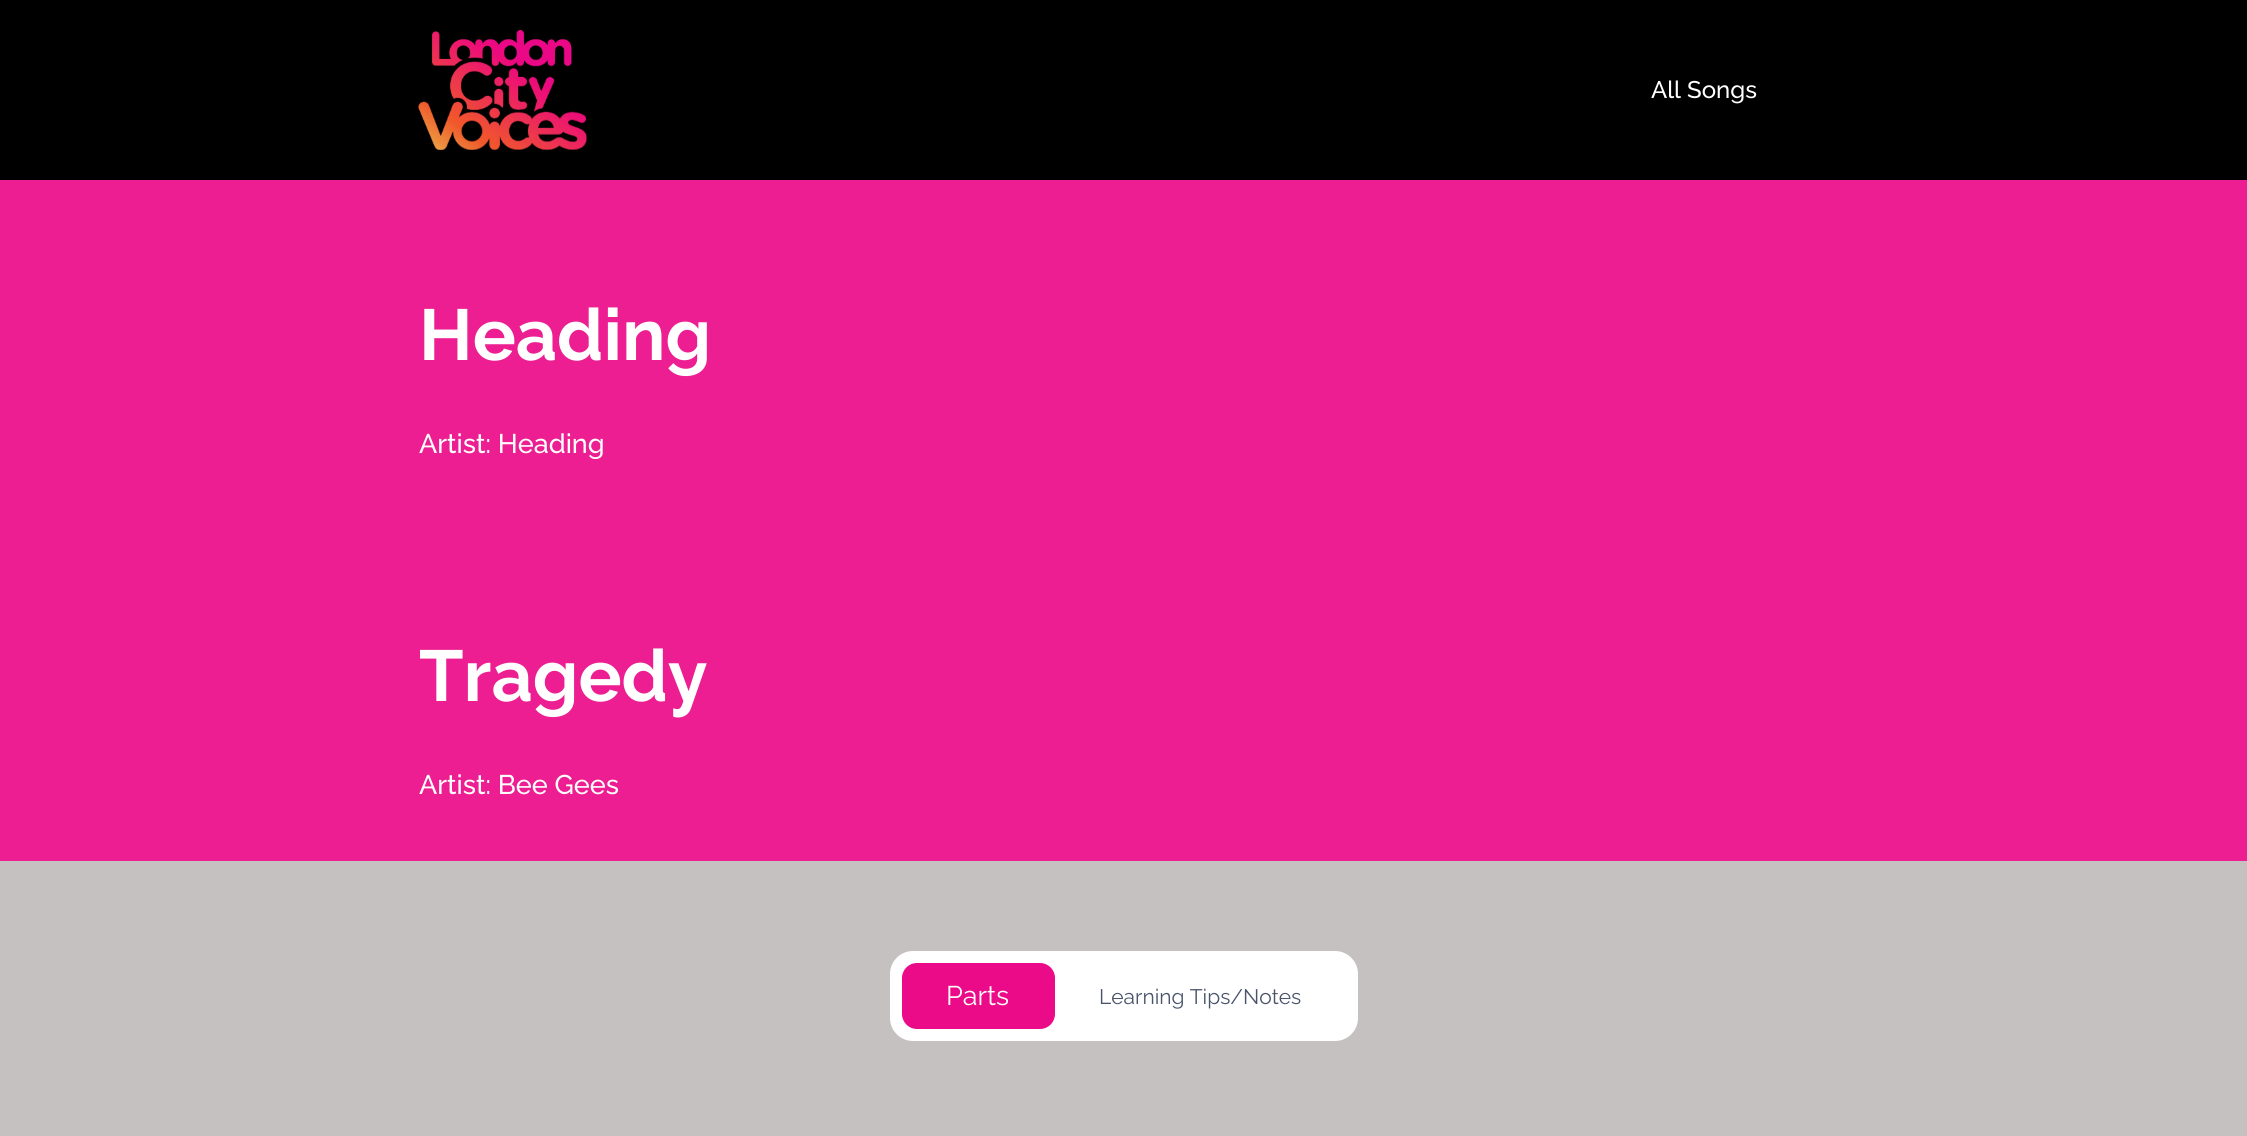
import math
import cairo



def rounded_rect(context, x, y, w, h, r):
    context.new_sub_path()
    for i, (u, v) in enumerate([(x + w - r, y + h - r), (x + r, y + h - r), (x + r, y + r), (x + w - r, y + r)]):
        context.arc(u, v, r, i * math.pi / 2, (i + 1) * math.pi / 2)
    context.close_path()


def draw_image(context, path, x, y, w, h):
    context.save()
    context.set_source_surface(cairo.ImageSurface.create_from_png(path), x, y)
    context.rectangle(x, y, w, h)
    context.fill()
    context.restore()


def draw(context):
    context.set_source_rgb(236 / 255, 30 / 255, 145 / 255)
    context.paint()
    context.set_source_rgb(0, 0, 0)
    context.rectangle(0, 0, 2247, 180)
    context.fill()
    draw_image(context, "images/1.png", 418, 30, 169, 120)
    context.set_source_rgb(198 / 255, 193 / 255, 193 / 255)
    context.rectangle(0, 861, 2247, 275)
    context.fill()
    context.set_source_rgb(1, 1, 1)
    rounded_rect(context, 890, 951, 468, 90, 23)
    context.fill()
    context.set_source_rgb(235 / 255, 11 / 255, 136 / 255)
    rounded_rect(context, 902, 963, 153, 66, 15)
    context.fill()
    context.select_font_face("Raleway Medium")
    context.set_font_size(24)
    context.set_source_rgb(1, 1, 1)
    context.move_to(1651, 98)
    context.show_text("All Songs")
    context.select_font_face("Raleway", cairo.FontSlant.NORMAL, cairo.FontWeight.BOLD)
    context.set_font_size(72)
    context.move_to(419, 360)
    context.show_text("Heading")
    context.select_font_face("Raleway Medium")
    context.set_font_size(27)
    context.move_to(419, 453)
    context.show_text("Artist: Heading")
    context.select_font_face("Raleway", cairo.FontSlant.NORMAL, cairo.FontWeight.BOLD)
    context.set_font_size(72)
    context.move_to(419, 701)
    context.show_text("Tragedy")
    context.select_font_face("Raleway Medium")
    context.set_font_size(27)
    context.move_to(419, 794)
    context.show_text("Artist: Bee Gees")
    context.select_font_face("Raleway")
    context.move_to(946, 1005)
    context.show_text("Parts")
    context.set_font_size(21)
    context.set_source_rgb(74 / 255, 85 / 255, 108 / 255)
    context.move_to(1099, 1004)
    context.show_text("Learning Tips/Notes")


surface = cairo.ImageSurface(cairo.Format.RGB24, 2247, 1136)
context = cairo.Context(surface)
options = cairo.FontOptions()
options.set_hint_metrics(cairo.HintMetrics.OFF)
options.set_hint_style(cairo.HintStyle.NONE)
context.set_font_options(options)
context.set_miter_limit(4)
draw(context)
surface.write_to_png("out.png")
